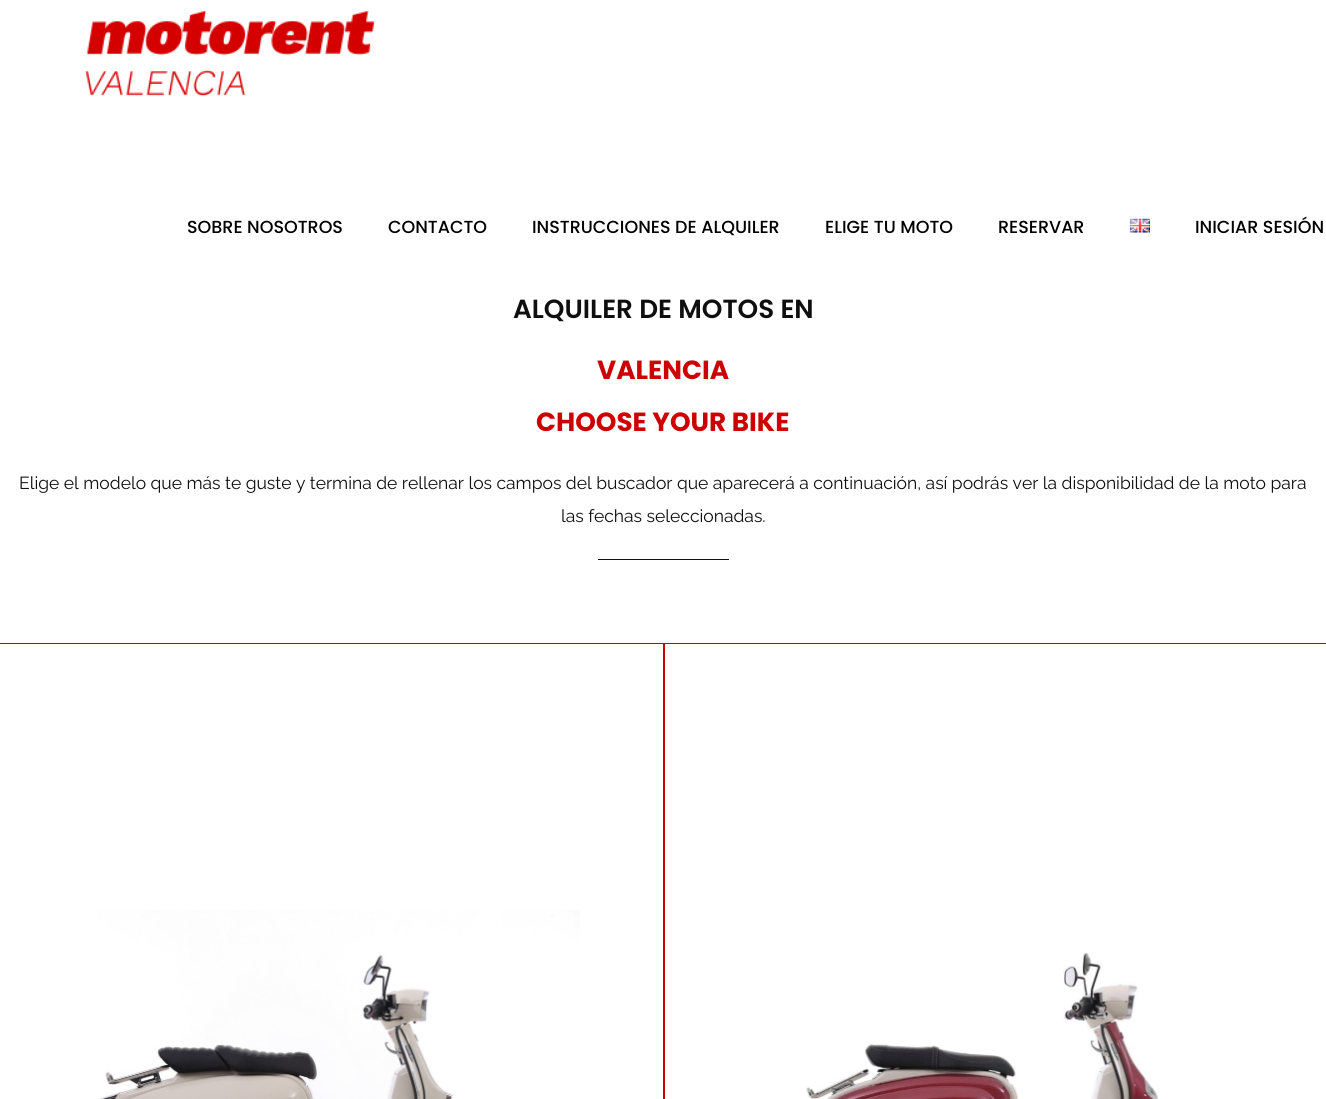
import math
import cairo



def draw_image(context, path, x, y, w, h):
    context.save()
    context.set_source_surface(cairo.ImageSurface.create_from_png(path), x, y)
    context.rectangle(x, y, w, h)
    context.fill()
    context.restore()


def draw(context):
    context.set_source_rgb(1, 1, 1)
    context.paint()
    draw_image(context, "images/1.png", 85, 10, 290, 86)
    draw_image(context, "images/2.png", 1129, 218, 21, 15)
    context.set_source_rgb(15 / 255, 15 / 255, 15 / 255)
    context.rectangle(598, 559, 131, 1)
    context.fill()
    context.rectangle(-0.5, 643.5, 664, 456)
    context.set_source_rgb(204 / 255, 0, 0)
    context.set_line_width(1)
    context.stroke()
    draw_image(context, "images/3.png", 98, 910, 482, 189)
    context.rectangle(664.5, 643.5, 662, 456)
    context.stroke()
    draw_image(context, "images/4.png", 806, 952, 353, 147)
    context.select_font_face("Poppins Medium")
    context.set_font_size(17.5)
    context.set_source_rgb(0, 0, 0)
    context.move_to(187, 233)
    context.show_text("SOBRE NOSOTROS")
    context.move_to(388, 233)
    context.show_text("CONTACTO")
    context.move_to(532, 233)
    context.show_text("INSTRUCCIONES DE ALQUILER")
    context.move_to(825, 233)
    context.show_text("ELIGE TU MOTO")
    context.move_to(998, 233)
    context.show_text("RESERVAR")
    context.move_to(1195, 233)
    context.show_text("INICIAR SESIÓN")
    context.select_font_face("Poppins SemiBold")
    context.set_font_size(26.25)
    context.set_source_rgb(15 / 255, 15 / 255, 15 / 255)
    context.move_to(513, 318)
    context.show_text("ALQUILER DE MOTOS EN")
    context.select_font_face("Poppins", cairo.FontSlant.NORMAL, cairo.FontWeight.BOLD)
    context.set_source_rgb(204 / 255, 0, 0)
    context.move_to(597, 379)
    context.show_text("VALENCIA")
    context.move_to(536, 431)
    context.show_text("CHOOSE YOUR BIKE")
    context.select_font_face("Raleway")
    context.set_font_size(17.5)
    context.set_source_rgb(15 / 255, 15 / 255, 15 / 255)
    context.move_to(19, 489)
    context.show_text("Elige el modelo que más te guste y termina de rellenar los campos del buscador que aparecerá a continuación, así podrás ver la disponibilidad de la moto para")
    context.move_to(561, 522)
    context.show_text("las fechas seleccionadas.")


surface = cairo.ImageSurface(cairo.Format.RGB24, 1326, 1099)
context = cairo.Context(surface)
options = cairo.FontOptions()
options.set_hint_metrics(cairo.HintMetrics.OFF)
options.set_hint_style(cairo.HintStyle.NONE)
context.set_font_options(options)
context.set_miter_limit(4)
draw(context)
surface.write_to_png("out.png")
